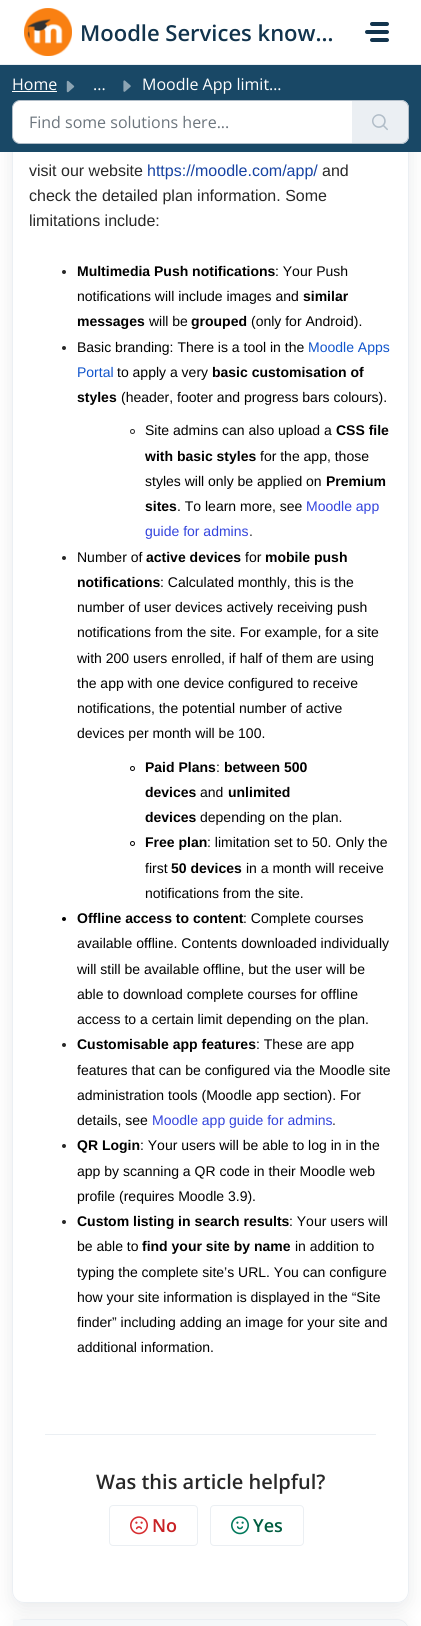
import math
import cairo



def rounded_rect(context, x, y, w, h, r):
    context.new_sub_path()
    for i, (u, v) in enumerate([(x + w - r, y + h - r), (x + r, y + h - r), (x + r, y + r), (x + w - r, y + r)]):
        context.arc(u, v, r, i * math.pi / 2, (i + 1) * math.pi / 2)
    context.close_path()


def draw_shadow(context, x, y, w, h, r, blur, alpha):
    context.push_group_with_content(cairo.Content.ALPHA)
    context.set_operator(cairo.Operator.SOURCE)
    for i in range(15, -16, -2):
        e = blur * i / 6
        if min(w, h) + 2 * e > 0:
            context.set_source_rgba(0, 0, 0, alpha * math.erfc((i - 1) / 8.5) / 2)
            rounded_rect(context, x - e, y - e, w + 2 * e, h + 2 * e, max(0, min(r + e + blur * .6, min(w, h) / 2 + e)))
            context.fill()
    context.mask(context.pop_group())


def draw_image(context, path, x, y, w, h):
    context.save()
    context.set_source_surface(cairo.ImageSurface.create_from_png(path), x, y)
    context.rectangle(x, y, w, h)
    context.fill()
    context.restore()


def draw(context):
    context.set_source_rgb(1, 1, 1)
    context.paint()
    context.save()
    context.set_fill_rule(cairo.FillRule.EVEN_ODD)
    context.new_path()
    context.move_to(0, 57)
    context.line_to(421, 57)
    context.line_to(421, 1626)
    context.line_to(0, 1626)
    context.close_path()
    context.move_to(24, 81)
    context.line_to(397, 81)
    context.curve_to(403.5, 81, 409, 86.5, 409, 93)
    context.line_to(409, 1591)
    context.curve_to(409, 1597.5, 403.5, 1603, 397, 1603)
    context.line_to(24, 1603)
    context.curve_to(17.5, 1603, 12, 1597.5, 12, 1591)
    context.line_to(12, 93)
    context.curve_to(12, 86.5, 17.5, 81, 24, 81)
    context.close_path()
    context.clip()
    context.set_source_rgb(39 / 255, 49 / 255, 58 / 255)
    draw_shadow(context, 12, 87, 397, 1522, 12, 9.5, 0.1)
    context.restore()
    context.set_source_rgb(235 / 255, 239 / 255, 243 / 255)
    context.rectangle(0, 64, 421, 1)
    context.fill()
    draw_image(context, "images/1.png", 24, 8, 48, 48)
    context.set_source_rgb(18 / 255, 52 / 255, 77 / 255)
    rounded_rect(context, 370, 22, 19, 4, 2)
    context.fill()
    rounded_rect(context, 365, 30, 24, 4, 2)
    context.fill()
    rounded_rect(context, 370, 38, 19, 4, 2)
    context.fill()
    rounded_rect(context, 12.5, 81.5, 396, 1521, 11.5)
    context.set_source_rgb(235 / 255, 239 / 255, 243 / 255)
    context.set_line_width(1)
    context.stroke()
    context.set_source_rgb(25 / 255, 72 / 255, 102 / 255)
    context.rectangle(0, 65, 421, 87)
    context.fill()
    context.set_source_rgb(1, 1, 1)
    context.rectangle(12, 91, 45, 1)
    context.fill()
    draw_image(context, "images/2.png", 66, 80, 9, 13)
    draw_image(context, "images/3.png", 123, 80, 8, 12)
    context.new_path()
    context.move_to(20, 100.5)
    context.line_to(352.5, 100.5)
    context.line_to(352.5, 143.5)
    context.line_to(20, 143.5)
    context.curve_to(16, 143.5, 12.5, 140, 12.5, 136)
    context.line_to(12.5, 108)
    context.curve_to(12.5, 104, 16, 100.5, 20, 100.5)
    context.close_path()
    context.fill_preserve()
    context.set_source_rgb(177 / 255, 189 / 255, 200 / 255)
    context.stroke()
    context.set_source_rgb(235 / 255, 239 / 255, 243 / 255)
    context.new_path()
    context.move_to(352, 100)
    context.line_to(401, 100)
    context.curve_to(405.5, 100, 409, 103.5, 409, 108)
    context.line_to(409, 136)
    context.curve_to(409, 140.5, 405.5, 144, 401, 144)
    context.line_to(352, 144)
    context.close_path()
    context.fill()
    context.set_source_rgb(177 / 255, 189 / 255, 200 / 255)
    context.set_fill_rule(cairo.FillRule.EVEN_ODD)
    context.new_path()
    context.move_to(352, 100)
    context.line_to(401, 100)
    context.curve_to(405, 100, 409, 104, 409, 108)
    context.line_to(409, 136)
    context.curve_to(409, 140, 405, 144, 401, 144)
    context.line_to(352, 144)
    context.close_path()
    context.move_to(352, 101)
    context.line_to(401, 101)
    context.curve_to(405, 101, 408, 104, 408, 108)
    context.line_to(408, 136)
    context.curve_to(408, 140, 405, 143, 401, 143)
    context.line_to(352, 143)
    context.close_path()
    context.fill()
    draw_image(context, "images/4.png", 372, 114, 16, 17)
    context.set_source_rgb(40 / 255, 40 / 255, 40 / 255)
    context.arc(64, 272, 2, 0, 2 * math.pi)
    context.fill()
    context.arc(64, 348, 2, 0, 2 * math.pi)
    context.fill()
    context.arc(132.5, 431.5, 2, 0, 2 * math.pi)
    context.stroke()
    context.arc(64, 558, 2, 0, 2 * math.pi)
    context.fill()
    context.arc(132.5, 768.5, 2, 0, 2 * math.pi)
    context.set_source_rgb(0, 0, 0)
    context.stroke()
    context.arc(132.5, 843.5, 2, 0, 2 * math.pi)
    context.stroke()
    context.arc(64, 919, 2, 0, 2 * math.pi)
    context.fill()
    context.set_source_rgb(40 / 255, 40 / 255, 40 / 255)
    context.arc(64, 1045, 2, 0, 2 * math.pi)
    context.fill()
    context.arc(64, 1146, 2, 0, 2 * math.pi)
    context.fill()
    context.arc(64, 1222, 2, 0, 2 * math.pi)
    context.fill()
    context.set_source_rgb(235 / 255, 239 / 255, 243 / 255)
    context.rectangle(45, 1434, 331, 1)
    context.fill()
    rounded_rect(context, 109.5, 1505.5, 88, 40, 3.5)
    context.stroke()
    draw_image(context, "images/5.png", 130, 1516, 18, 19)
    rounded_rect(context, 210.5, 1505.5, 93, 40, 3.5)
    context.stroke()
    draw_image(context, "images/6.png", 231, 1516, 18, 19)
    context.set_source_rgb(39 / 255, 49 / 255, 58 / 255)
    draw_shadow(context, 12, 1625, 397, 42, 12, 9.5, 0.1)
    rounded_rect(context, 12.5, 1619.5, 396, 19, 11.5)
    context.set_source_rgb(235 / 255, 239 / 255, 243 / 255)
    context.stroke()
    context.set_source_rgb(245 / 255, 247 / 255, 249 / 255)
    context.new_path()
    context.move_to(13, 1620)
    context.line_to(396, 1620)
    context.curve_to(402.5, 1620, 408, 1625.5, 408, 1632)
    context.line_to(408, 1626)
    context.curve_to(408, 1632.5, 402.5, 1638, 396, 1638)
    context.line_to(13, 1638)
    context.close_path()
    context.fill()
    context.select_font_face("Open Sans SemiBold")
    context.set_font_size(22)
    context.set_source_rgb(18 / 255, 52 / 255, 77 / 255)
    context.move_to(80, 41)
    context.show_text("Moodle Services know…")
    context.select_font_face("Open Sans")
    context.set_font_size(16)
    context.set_source_rgb(1, 1, 1)
    context.move_to(12, 90)
    context.show_text("Home")
    context.move_to(93, 90)
    context.show_text("...")
    context.move_to(142, 90)
    context.show_text("Moodle App limit…")
    context.set_source_rgb(108 / 255, 117 / 255, 125 / 255)
    context.move_to(29, 128)
    context.show_text("Find some solutions here...")
    context.select_font_face("Liberation Sans")
    context.set_source_rgb(40 / 255, 40 / 255, 40 / 255)
    context.move_to(29, 176)
    context.show_text("visit our website")
    context.set_source_rgb(23 / 255, 67 / 255, 163 / 255)
    context.move_to(147, 176)
    context.show_text("https://moodle.com/app/")
    context.set_source_rgb(40 / 255, 40 / 255, 40 / 255)
    context.move_to(322, 176)
    context.show_text("and")
    context.move_to(29, 201)
    context.show_text("check the detailed plan information. Some")
    context.move_to(29, 226)
    context.show_text("limitations include:")
    context.select_font_face("Liberation Sans", cairo.FontSlant.NORMAL, cairo.FontWeight.BOLD)
    context.set_font_size(14)
    context.set_source_rgb(0, 0, 0)
    context.move_to(77, 276)
    context.show_text("Multimedia Push notifications")
    context.select_font_face("Liberation Sans")
    context.move_to(275, 276)
    context.show_text(": Your Push")
    context.move_to(77, 301)
    context.show_text("notifications will include images and")
    context.select_font_face("Liberation Sans", cairo.FontSlant.NORMAL, cairo.FontWeight.BOLD)
    context.move_to(303, 301)
    context.show_text("similar")
    context.move_to(77, 326)
    context.show_text("messages")
    context.select_font_face("Liberation Sans")
    context.move_to(149, 326)
    context.show_text("will be")
    context.select_font_face("Liberation Sans", cairo.FontSlant.NORMAL, cairo.FontWeight.BOLD)
    context.move_to(191, 326)
    context.show_text("grouped")
    context.select_font_face("Liberation Sans")
    context.move_to(251, 326)
    context.show_text("(only for Android).")
    context.move_to(77, 352)
    context.show_text("Basic branding: There is a tool in the")
    context.set_source_rgb(17 / 255, 85 / 255, 204 / 255)
    context.move_to(308, 352)
    context.show_text("Moodle Apps")
    context.move_to(77, 377)
    context.show_text("Portal")
    context.set_source_rgb(0, 0, 0)
    context.move_to(117, 377)
    context.show_text("to apply a very")
    context.select_font_face("Liberation Sans", cairo.FontSlant.NORMAL, cairo.FontWeight.BOLD)
    context.move_to(212, 377)
    context.show_text("basic customisation of")
    context.move_to(77, 402)
    context.show_text("styles")
    context.select_font_face("Liberation Sans")
    context.move_to(121, 402)
    context.show_text("(header, footer and progress bars colours).")
    context.move_to(145, 435)
    context.show_text("Site admins can also upload a")
    context.select_font_face("Liberation Sans", cairo.FontSlant.NORMAL, cairo.FontWeight.BOLD)
    context.move_to(336, 435)
    context.show_text("CSS file")
    context.move_to(145, 461)
    context.show_text("with basic styles")
    context.select_font_face("Liberation Sans")
    context.move_to(260, 461)
    context.show_text("for the app, those")
    context.move_to(145, 486)
    context.show_text("styles will only be applied on")
    context.select_font_face("Liberation Sans", cairo.FontSlant.NORMAL, cairo.FontWeight.BOLD)
    context.move_to(326, 486)
    context.show_text("Premium")
    context.move_to(145, 511)
    context.show_text("sites")
    context.select_font_face("Liberation Sans")
    context.move_to(177, 511)
    context.show_text(". To learn more, see")
    context.set_source_rgb(51 / 255, 68 / 255, 221 / 255)
    context.move_to(306, 511)
    context.show_text("Moodle app")
    context.move_to(145, 536)
    context.show_text("guide for admins")
    context.set_source_rgb(40 / 255, 40 / 255, 40 / 255)
    context.move_to(249, 536)
    context.show_text(".")
    context.set_source_rgb(0, 0, 0)
    context.move_to(77, 562)
    context.show_text("Number of")
    context.select_font_face("Liberation Sans", cairo.FontSlant.NORMAL, cairo.FontWeight.BOLD)
    context.move_to(146, 562)
    context.show_text("active devices")
    context.select_font_face("Liberation Sans")
    context.move_to(245, 562)
    context.show_text("for")
    context.select_font_face("Liberation Sans", cairo.FontSlant.NORMAL, cairo.FontWeight.BOLD)
    context.move_to(265, 562)
    context.show_text("mobile push")
    context.move_to(77, 587)
    context.show_text("notifications")
    context.select_font_face("Liberation Sans")
    context.move_to(160, 587)
    context.show_text(": Calculated monthly, this is the")
    context.move_to(77, 612)
    context.show_text("number of user devices actively receiving push")
    context.move_to(77, 637)
    context.show_text("notifications from the site. For example, for a site")
    context.move_to(77, 663)
    context.show_text("with 200 users enrolled, if half of them are using")
    context.move_to(77, 688)
    context.show_text("the app with one device configured to receive")
    context.move_to(77, 713)
    context.show_text("notifications, the potential number of active")
    context.move_to(77, 738)
    context.show_text("devices per month will be 100.")
    context.select_font_face("Liberation Sans", cairo.FontSlant.NORMAL, cairo.FontWeight.BOLD)
    context.move_to(145, 772)
    context.show_text("Paid Plans")
    context.select_font_face("Liberation Sans")
    context.move_to(216, 772)
    context.show_text(":")
    context.select_font_face("Liberation Sans", cairo.FontSlant.NORMAL, cairo.FontWeight.BOLD)
    context.move_to(224, 772)
    context.show_text("between 500")
    context.move_to(145, 797)
    context.show_text("devices")
    context.select_font_face("Liberation Sans")
    context.move_to(200, 797)
    context.show_text("and")
    context.select_font_face("Liberation Sans", cairo.FontSlant.NORMAL, cairo.FontWeight.BOLD)
    context.move_to(228, 797)
    context.show_text("unlimited")
    context.move_to(145, 822)
    context.show_text("devices")
    context.select_font_face("Liberation Sans")
    context.move_to(200, 822)
    context.show_text("depending on the plan.")
    context.select_font_face("Liberation Sans", cairo.FontSlant.NORMAL, cairo.FontWeight.BOLD)
    context.move_to(145, 847)
    context.show_text("Free plan")
    context.select_font_face("Liberation Sans")
    context.move_to(207, 847)
    context.show_text(": limitation set to 50. Only the")
    context.move_to(145, 873)
    context.show_text("first")
    context.select_font_face("Liberation Sans", cairo.FontSlant.NORMAL, cairo.FontWeight.BOLD)
    context.move_to(171, 873)
    context.show_text("50 devices")
    context.select_font_face("Liberation Sans")
    context.move_to(246, 873)
    context.show_text("in a month will receive")
    context.move_to(145, 898)
    context.show_text("notifications from the site.")
    context.select_font_face("Liberation Sans", cairo.FontSlant.NORMAL, cairo.FontWeight.BOLD)
    context.move_to(77, 923)
    context.show_text("Offline access to content")
    context.select_font_face("Liberation Sans")
    context.move_to(243, 923)
    context.show_text(": Complete courses")
    context.move_to(77, 948)
    context.show_text("available offline. Contents downloaded individually")
    context.move_to(77, 974)
    context.show_text("will still be available offline, but the user will be")
    context.move_to(77, 999)
    context.show_text("able to download complete courses for offline")
    context.move_to(77, 1024)
    context.show_text("access to a certain limit depending on the plan.")
    context.select_font_face("Liberation Sans", cairo.FontSlant.NORMAL, cairo.FontWeight.BOLD)
    context.move_to(77, 1049)
    context.show_text("Customisable app features")
    context.select_font_face("Liberation Sans")
    context.move_to(256, 1049)
    context.show_text(": These are app")
    context.move_to(77, 1075)
    context.show_text("features that can be configured via the Moodle site")
    context.move_to(77, 1100)
    context.show_text("administration tools (Moodle app section). For")
    context.move_to(77, 1125)
    context.show_text("details, see")
    context.set_source_rgb(51 / 255, 68 / 255, 221 / 255)
    context.move_to(152, 1125)
    context.show_text("Moodle app guide for admins")
    context.set_source_rgb(40 / 255, 40 / 255, 40 / 255)
    context.move_to(332, 1125)
    context.show_text(".")
    context.select_font_face("Liberation Sans", cairo.FontSlant.NORMAL, cairo.FontWeight.BOLD)
    context.set_source_rgb(0, 0, 0)
    context.move_to(77, 1150)
    context.show_text("QR Login")
    context.select_font_face("Liberation Sans")
    context.move_to(140, 1150)
    context.show_text(": Your users will be able to log in in the")
    context.move_to(77, 1176)
    context.show_text("app by scanning a QR code in their Moodle web")
    context.move_to(77, 1201)
    context.show_text("profile (requires Moodle 3.9).")
    context.select_font_face("Liberation Sans", cairo.FontSlant.NORMAL, cairo.FontWeight.BOLD)
    context.move_to(77, 1226)
    context.show_text("Custom listing in search results")
    context.select_font_face("Liberation Sans")
    context.move_to(289, 1226)
    context.show_text(": Your users will")
    context.move_to(77, 1251)
    context.show_text("be able to")
    context.select_font_face("Liberation Sans", cairo.FontSlant.NORMAL, cairo.FontWeight.BOLD)
    context.move_to(142, 1251)
    context.show_text("find your site by name")
    context.select_font_face("Liberation Sans")
    context.move_to(295, 1251)
    context.show_text("in addition to")
    context.move_to(77, 1277)
    context.show_text("typing the complete site’s URL. You can configure")
    context.move_to(77, 1302)
    context.show_text("how your site information is displayed in the “Site")
    context.move_to(77, 1327)
    context.show_text("finder” including adding an image for your site and")
    context.move_to(77, 1352)
    context.show_text("additional information.")
    context.select_font_face("Open Sans SemiBold")
    context.set_font_size(20)
    context.set_source_rgb(40 / 255, 40 / 255, 40 / 255)
    context.move_to(96, 1489)
    context.show_text("Was this article helpful?")
    context.set_font_size(18)
    context.set_source_rgb(200 / 255, 33 / 255, 36 / 255)
    context.move_to(152, 1532)
    context.show_text("No")
    context.set_source_rgb(0, 92 / 255, 63 / 255)
    context.move_to(253, 1532)
    context.show_text("Yes")


surface = cairo.ImageSurface(cairo.Format.RGB24, 421, 1626)
context = cairo.Context(surface)
options = cairo.FontOptions()
options.set_hint_metrics(cairo.HintMetrics.OFF)
options.set_hint_style(cairo.HintStyle.NONE)
context.set_font_options(options)
context.set_miter_limit(4)
draw(context)
surface.write_to_png("out.png")
